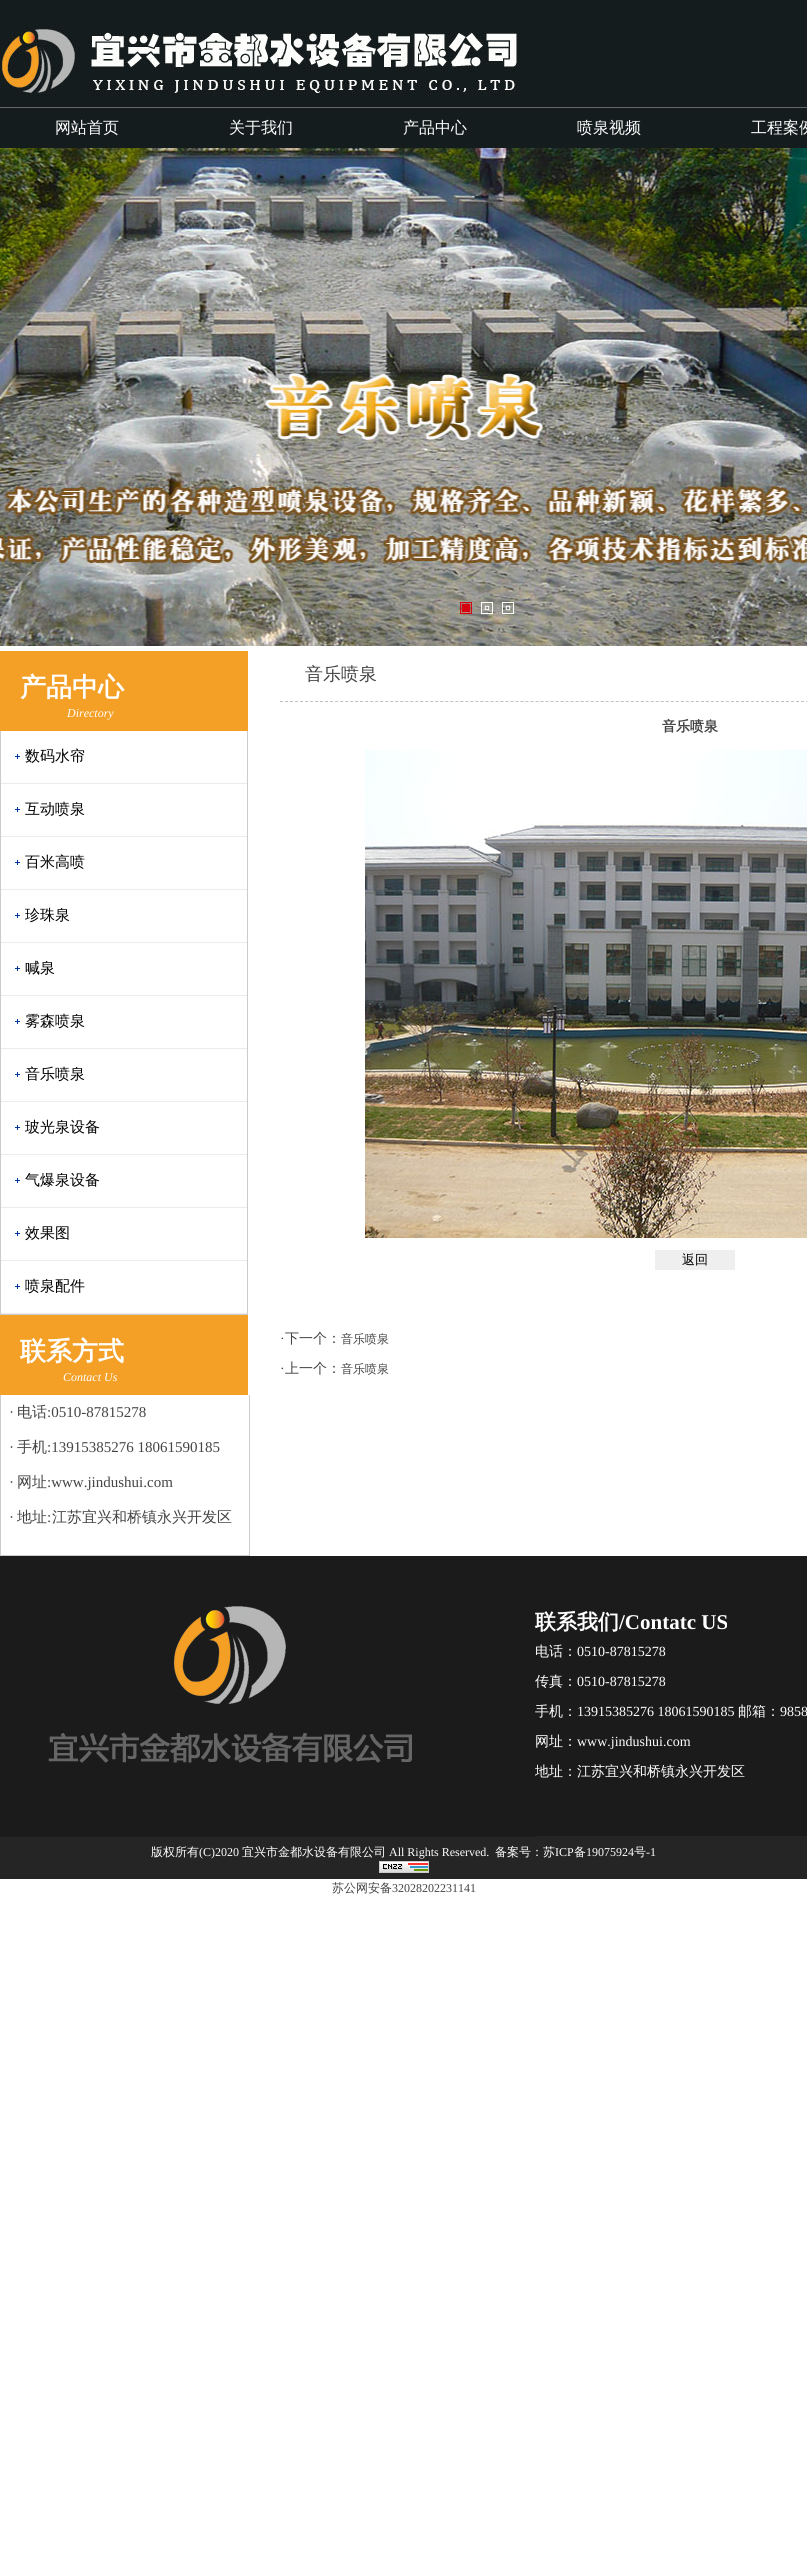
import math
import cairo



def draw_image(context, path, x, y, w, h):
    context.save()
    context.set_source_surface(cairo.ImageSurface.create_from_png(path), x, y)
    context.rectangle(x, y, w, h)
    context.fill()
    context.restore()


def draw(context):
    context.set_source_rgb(1, 1, 1)
    context.paint()
    context.set_source_rgb(21 / 255, 28 / 255, 29 / 255)
    context.rectangle(0, 0, 807, 107)
    context.fill()
    draw_image(context, "images/1.png", 0, 24, 520, 72)
    context.rectangle(0, 108, 807, 40)
    context.fill()
    context.set_source_rgb(102 / 255, 102 / 255, 102 / 255)
    context.rectangle(0, 107, 807, 1)
    context.fill()
    draw_image(context, "images/2.png", 0, 148, 807, 498)
    draw_image(context, "images/3.png", 460, 602, 12, 12)
    draw_image(context, "images/4.png", 481, 602, 12, 12)
    draw_image(context, "images/5.png", 502, 602, 12, 12)
    context.set_source_rgb(244 / 255, 159 / 255, 37 / 255)
    context.rectangle(0, 651, 248, 80)
    context.fill()
    context.set_source_rgb(204 / 255, 204 / 255, 204 / 255)
    context.rectangle(247, 731, 1, 584)
    context.fill()
    context.rectangle(0, 1314, 248, 1)
    context.fill()
    context.rectangle(0, 731, 1, 584)
    context.fill()
    context.set_source_rgb(236 / 255, 236 / 255, 236 / 255)
    context.rectangle(1, 783, 246, 1)
    context.fill()
    draw_image(context, "images/6.png", 14, 753, 7, 7)
    context.rectangle(1, 836, 246, 1)
    context.fill()
    draw_image(context, "images/6.png", 14, 806, 7, 7)
    context.rectangle(1, 889, 246, 1)
    context.fill()
    draw_image(context, "images/6.png", 14, 859, 7, 7)
    context.rectangle(1, 942, 246, 1)
    context.fill()
    draw_image(context, "images/6.png", 14, 912, 7, 7)
    context.rectangle(1, 995, 246, 1)
    context.fill()
    draw_image(context, "images/6.png", 14, 965, 7, 7)
    context.rectangle(1, 1048, 246, 1)
    context.fill()
    draw_image(context, "images/6.png", 14, 1018, 7, 7)
    context.rectangle(1, 1101, 246, 1)
    context.fill()
    draw_image(context, "images/6.png", 14, 1071, 7, 7)
    context.rectangle(1, 1154, 246, 1)
    context.fill()
    draw_image(context, "images/6.png", 14, 1124, 7, 7)
    context.rectangle(1, 1207, 246, 1)
    context.fill()
    draw_image(context, "images/6.png", 14, 1177, 7, 7)
    context.rectangle(1, 1260, 246, 1)
    context.fill()
    draw_image(context, "images/6.png", 14, 1230, 7, 7)
    context.rectangle(1, 1313, 246, 1)
    context.fill()
    draw_image(context, "images/6.png", 14, 1283, 7, 7)
    context.set_source_rgb(244 / 255, 159 / 255, 37 / 255)
    context.rectangle(0, 1315, 248, 80)
    context.fill()
    context.set_source_rgb(204 / 255, 204 / 255, 204 / 255)
    context.rectangle(249, 1395, 1, 161)
    context.fill()
    context.rectangle(0, 1555, 250, 1)
    context.fill()
    context.rectangle(0, 1395, 1, 161)
    context.fill()
    context.new_path()
    context.move_to(280, 701.5)
    context.line_to(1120, 701.5)
    context.set_source_rgb(192 / 255, 192 / 255, 192 / 255)
    context.set_line_width(1)
    context.set_dash([3, 2.01])
    context.stroke()
    draw_image(context, "images/7.png", 365, 750, 442, 488)
    context.set_source_rgb(239 / 255, 239 / 255, 239 / 255)
    context.rectangle(655, 1250, 80, 20)
    context.fill()
    context.set_source_rgb(27 / 255, 27 / 255, 27 / 255)
    context.rectangle(0, 1556, 807, 280)
    context.fill()
    context.set_source_rgb(37 / 255, 37 / 255, 37 / 255)
    context.rectangle(0, 1836, 807, 43)
    context.fill()
    draw_image(context, "images/8.png", 0, 1606, 535, 231)
    draw_image(context, "images/9.png", 379, 1861, 50, 12)
    context.select_font_face("WenQuanYi Zen Hei Medium")
    context.set_font_size(16)
    context.set_source_rgb(1, 1, 1)
    context.move_to(55, 133)
    context.show_text("网站首页")
    context.move_to(229, 133)
    context.show_text("关于我们")
    context.move_to(403, 133)
    context.show_text("产品中心")
    context.move_to(577, 133)
    context.show_text("喷泉视频")
    context.move_to(751, 133)
    context.show_text("工程案例")
    context.select_font_face("WenQuanYi Zen Hei", cairo.FontSlant.NORMAL, cairo.FontWeight.BOLD)
    context.set_font_size(26)
    context.move_to(20, 696)
    context.show_text("产品中心")
    context.select_font_face("Liberation Serif", cairo.FontSlant.ITALIC)
    context.set_font_size(12)
    context.move_to(67, 717)
    context.show_text("Directory")
    context.select_font_face("WenQuanYi Zen Hei Medium")
    context.set_font_size(15)
    context.set_source_rgb(0, 0, 0)
    context.move_to(25, 761)
    context.show_text("数码水帘")
    context.move_to(25, 814)
    context.show_text("互动喷泉")
    context.move_to(25, 867)
    context.show_text("百米高喷")
    context.move_to(25, 920)
    context.show_text("珍珠泉")
    context.move_to(25, 973)
    context.show_text("喊泉")
    context.move_to(25, 1026)
    context.show_text("雾森喷泉")
    context.move_to(25, 1079)
    context.show_text("音乐喷泉")
    context.move_to(25, 1132)
    context.show_text("玻光泉设备")
    context.move_to(25, 1185)
    context.show_text("气爆泉设备")
    context.move_to(25, 1238)
    context.show_text("效果图")
    context.move_to(25, 1291)
    context.show_text("喷泉配件")
    context.select_font_face("WenQuanYi Zen Hei", cairo.FontSlant.NORMAL, cairo.FontWeight.BOLD)
    context.set_font_size(26)
    context.set_source_rgb(1, 1, 1)
    context.move_to(20, 1360)
    context.show_text("联系方式")
    context.select_font_face("Liberation Serif", cairo.FontSlant.ITALIC)
    context.set_font_size(12)
    context.move_to(63, 1381)
    context.show_text("Contact Us")
    context.select_font_face("Liberation Serif")
    context.set_font_size(15)
    context.set_source_rgb(68 / 255, 68 / 255, 68 / 255)
    context.move_to(9, 1417)
    context.show_text("·")
    context.select_font_face("WenQuanYi Zen Hei Medium")
    context.move_to(17, 1417)
    context.show_text("电话")
    context.select_font_face("Liberation Serif")
    context.move_to(47, 1417)
    context.show_text(":0510-87815278")
    context.move_to(9, 1452)
    context.show_text("·")
    context.select_font_face("WenQuanYi Zen Hei Medium")
    context.move_to(17, 1452)
    context.show_text("手机")
    context.select_font_face("Liberation Serif")
    context.move_to(47, 1452)
    context.show_text(":13915385276 18061590185")
    context.move_to(9, 1487)
    context.show_text("·")
    context.select_font_face("WenQuanYi Zen Hei Medium")
    context.move_to(17, 1487)
    context.show_text("网址")
    context.select_font_face("Liberation Serif")
    context.move_to(47, 1487)
    context.show_text(":www.jindushui.com")
    context.move_to(9, 1522)
    context.show_text("·")
    context.select_font_face("WenQuanYi Zen Hei Medium")
    context.move_to(17, 1522)
    context.show_text("地址")
    context.select_font_face("Liberation Serif")
    context.move_to(47, 1522)
    context.show_text(":")
    context.select_font_face("WenQuanYi Zen Hei Medium")
    context.move_to(52, 1522)
    context.show_text("江苏宜兴和桥镇永兴开发区")
    context.set_font_size(18)
    context.move_to(305, 680)
    context.show_text("音乐喷泉")
    context.select_font_face("WenQuanYi Zen Hei", cairo.FontSlant.NORMAL, cairo.FontWeight.BOLD)
    context.set_font_size(14)
    context.move_to(662, 731)
    context.show_text("音乐喷泉")
    context.select_font_face("WenQuanYi Zen Hei Medium")
    context.set_font_size(13)
    context.set_source_rgb(0, 0, 0)
    context.move_to(682, 1264)
    context.show_text("返回")
    context.select_font_face("Liberation Serif")
    context.set_font_size(14)
    context.set_source_rgb(68 / 255, 68 / 255, 68 / 255)
    context.move_to(280, 1343)
    context.show_text("·")
    context.select_font_face("WenQuanYi Zen Hei Medium")
    context.move_to(285, 1343)
    context.show_text("下一个：")
    context.set_font_size(12)
    context.move_to(341, 1343)
    context.show_text("音乐喷泉")
    context.select_font_face("Liberation Serif")
    context.set_font_size(14)
    context.move_to(280, 1373)
    context.show_text("·")
    context.select_font_face("WenQuanYi Zen Hei Medium")
    context.move_to(285, 1373)
    context.show_text("上一个：")
    context.set_font_size(12)
    context.move_to(341, 1373)
    context.show_text("音乐喷泉")
    context.select_font_face("WenQuanYi Zen Hei", cairo.FontSlant.NORMAL, cairo.FontWeight.BOLD)
    context.set_font_size(21)
    context.set_source_rgb(1, 1, 1)
    context.move_to(535, 1629)
    context.show_text("联系我们")
    context.select_font_face("Liberation Serif", cairo.FontSlant.NORMAL, cairo.FontWeight.BOLD)
    context.move_to(619, 1629)
    context.show_text("/Contatc US")
    context.select_font_face("WenQuanYi Zen Hei Medium")
    context.set_font_size(14)
    context.move_to(535, 1656)
    context.show_text("电话：")
    context.select_font_face("Liberation Serif")
    context.move_to(577, 1656)
    context.show_text("0510-87815278")
    context.select_font_face("WenQuanYi Zen Hei Medium")
    context.move_to(535, 1686)
    context.show_text("传真：")
    context.select_font_face("Liberation Serif")
    context.move_to(577, 1686)
    context.show_text("0510-87815278")
    context.select_font_face("WenQuanYi Zen Hei Medium")
    context.move_to(535, 1716)
    context.show_text("手机：")
    context.select_font_face("Liberation Serif")
    context.move_to(577, 1716)
    context.show_text("13915385276 18061590185")
    context.select_font_face("WenQuanYi Zen Hei Medium")
    context.move_to(738, 1716)
    context.show_text("邮箱：")
    context.select_font_face("Liberation Serif")
    context.move_to(780, 1716)
    context.show_text("9858")
    context.select_font_face("WenQuanYi Zen Hei Medium")
    context.move_to(535, 1746)
    context.show_text("网址：")
    context.select_font_face("Liberation Serif")
    context.move_to(577, 1746)
    context.show_text("www.jindushui.com")
    context.select_font_face("WenQuanYi Zen Hei Medium")
    context.move_to(535, 1776)
    context.show_text("地址：江苏宜兴和桥镇永兴开发区")
    context.set_font_size(12)
    context.move_to(151, 1856)
    context.show_text("版权所有")
    context.select_font_face("Liberation Serif")
    context.move_to(199, 1856)
    context.show_text("(C)2020")
    context.select_font_face("WenQuanYi Zen Hei Medium")
    context.move_to(242, 1856)
    context.show_text("宜兴市金都水设备有限公司")
    context.select_font_face("Liberation Serif")
    context.move_to(389, 1856)
    context.show_text("All Rights Reserved.")
    context.select_font_face("WenQuanYi Zen Hei Medium")
    context.move_to(495, 1856)
    context.show_text("备案号：苏")
    context.select_font_face("Liberation Serif")
    context.move_to(555, 1856)
    context.show_text("ICP")
    context.select_font_face("WenQuanYi Zen Hei Medium")
    context.move_to(574, 1856)
    context.show_text("备")
    context.select_font_face("Liberation Serif")
    context.move_to(586, 1856)
    context.show_text("19075924")
    context.select_font_face("WenQuanYi Zen Hei Medium")
    context.move_to(634, 1856)
    context.show_text("号")
    context.select_font_face("Liberation Serif")
    context.move_to(646, 1856)
    context.show_text("-1")
    context.select_font_face("WenQuanYi Zen Hei Medium")
    context.set_source_rgb(68 / 255, 68 / 255, 68 / 255)
    context.move_to(332, 1892)
    context.show_text("苏公网安备")
    context.select_font_face("Liberation Serif")
    context.move_to(392, 1892)
    context.show_text("32028202231141")


surface = cairo.ImageSurface(cairo.Format.RGB24, 807, 2554)
context = cairo.Context(surface)
options = cairo.FontOptions()
options.set_hint_metrics(cairo.HintMetrics.OFF)
options.set_hint_style(cairo.HintStyle.NONE)
context.set_font_options(options)
context.set_miter_limit(4)
draw(context)
surface.write_to_png("out.png")
